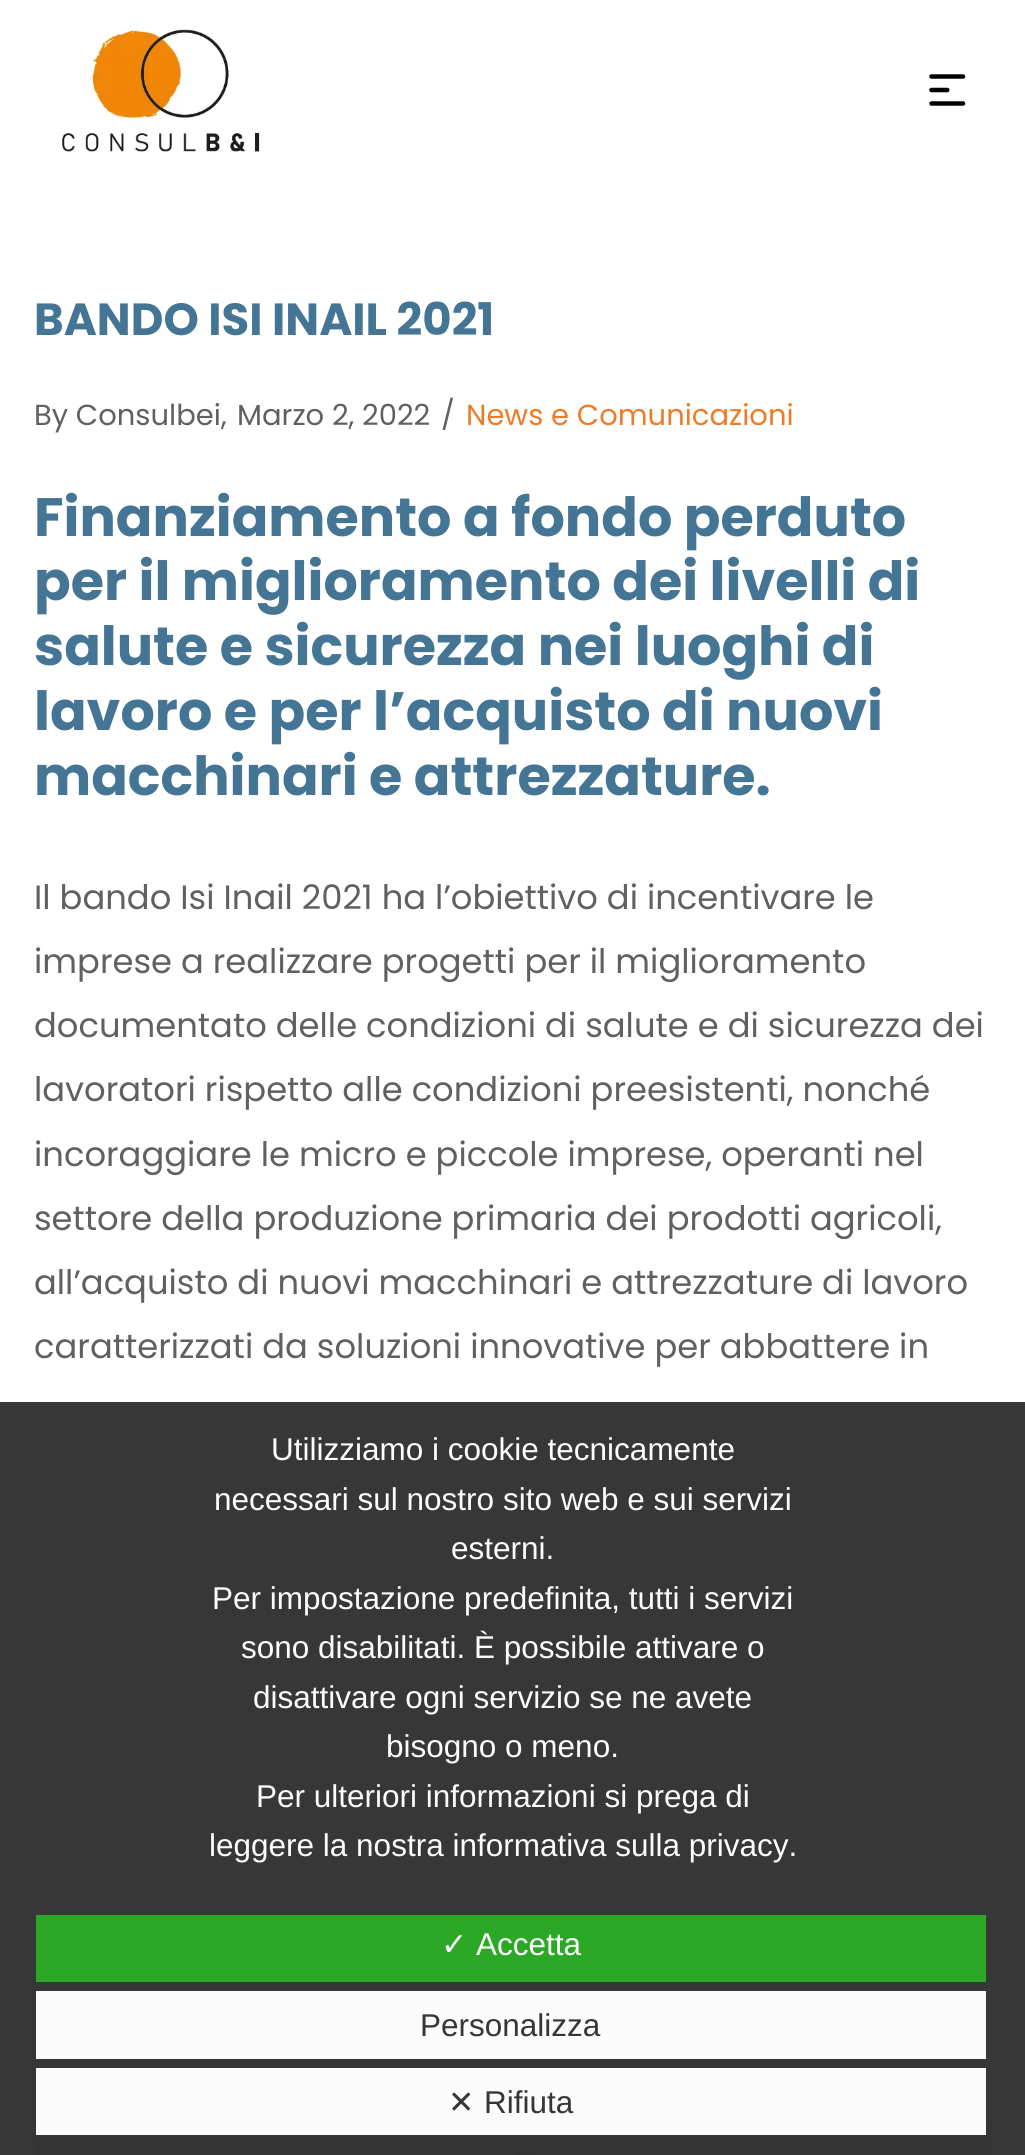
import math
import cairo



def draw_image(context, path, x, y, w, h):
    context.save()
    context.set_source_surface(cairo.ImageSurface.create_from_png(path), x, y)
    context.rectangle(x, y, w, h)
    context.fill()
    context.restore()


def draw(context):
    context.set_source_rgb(1, 1, 1)
    context.paint()
    draw_image(context, "images/1.png", 62, 28, 198, 125)
    draw_image(context, "images/2.png", 929, 74, 37, 32)
    draw_image(context, "images/3.png", 33, 2119, 960, 36)
    context.set_source_rgba(51 / 255, 51 / 255, 51 / 255, 0.98)
    context.rectangle(0, 1402, 1025, 753)
    context.fill()
    context.set_source_rgba(44 / 255, 170 / 255, 39 / 255, 0.98)
    context.rectangle(36, 1915, 950, 67)
    context.fill()
    context.set_source_rgba(1, 1, 1, 0.98)
    context.rectangle(36, 1991, 950, 68)
    context.fill()
    context.rectangle(36, 2068, 950, 67)
    context.fill()
    context.select_font_face("Poppins", cairo.FontSlant.NORMAL, cairo.FontWeight.BOLD)
    context.set_font_size(45)
    context.set_source_rgb(69 / 255, 117 / 255, 148 / 255)
    context.move_to(34, 335)
    context.show_text("BANDO ISI INAIL 2021")
    context.select_font_face("Poppins")
    context.set_font_size(29)
    context.set_source_rgb(96 / 255, 96 / 255, 96 / 255)
    context.move_to(34, 425)
    context.show_text("By Consulbei,")
    context.move_to(237, 425)
    context.show_text("Marzo 2, 2022")
    context.move_to(441, 425)
    context.show_text("/")
    context.set_source_rgb(239 / 255, 123 / 255, 38 / 255)
    context.move_to(466, 425)
    context.show_text("News e Comunicazioni")
    context.select_font_face("Poppins", cairo.FontSlant.NORMAL, cairo.FontWeight.BOLD)
    context.set_font_size(54)
    context.set_source_rgb(69 / 255, 117 / 255, 148 / 255)
    context.move_to(34, 536)
    context.show_text("Finanziamento a fondo perduto")
    context.move_to(34, 600)
    context.show_text("per il miglioramento dei livelli di")
    context.move_to(34, 665)
    context.show_text("salute e sicurezza nei luoghi di")
    context.move_to(34, 730)
    context.show_text("lavoro e per l’acquisto di nuovi")
    context.move_to(34, 795)
    context.show_text("macchinari e attrezzature.")
    context.select_font_face("Poppins")
    context.set_font_size(33.75)
    context.set_source_rgb(96 / 255, 96 / 255, 96 / 255)
    context.move_to(34, 909)
    context.show_text("Il bando Isi Inail 2021 ha l’obiettivo di incentivare le")
    context.move_to(34, 973)
    context.show_text("imprese a realizzare progetti per il miglioramento")
    context.move_to(34, 1037)
    context.show_text("documentato delle condizioni di salute e di sicurezza dei")
    context.move_to(34, 1101)
    context.show_text("lavoratori rispetto alle condizioni preesistenti, nonché")
    context.move_to(34, 1166)
    context.show_text("incoraggiare le micro e piccole imprese, operanti nel")
    context.move_to(34, 1230)
    context.show_text("settore della produzione primaria dei prodotti agricoli,")
    context.move_to(34, 1294)
    context.show_text("all’acquisto di nuovi macchinari e attrezzature di lavoro")
    context.move_to(34, 1358)
    context.show_text("caratterizzati da soluzioni innovative per abbattere in")
    context.select_font_face("Liberation Sans")
    context.set_font_size(31.5)
    context.set_source_rgb(252 / 255, 252 / 255, 252 / 255)
    context.move_to(271, 1460)
    context.show_text("Utilizziamo i cookie tecnicamente")
    context.move_to(214, 1510)
    context.show_text("necessari sul nostro sito web e sui servizi")
    context.move_to(451, 1559)
    context.show_text("esterni.")
    context.move_to(212, 1609)
    context.show_text("Per impostazione predefinita, tutti i servizi")
    context.move_to(241, 1658)
    context.show_text("sono disabilitati. È possibile attivare o")
    context.move_to(253, 1708)
    context.show_text("disattivare ogni servizio se ne avete")
    context.move_to(386, 1757)
    context.show_text("bisogno o meno.")
    context.move_to(256, 1807)
    context.show_text("Per ulteriori informazioni si prega di")
    context.move_to(209, 1856)
    context.show_text("leggere la nostra informativa sulla privacy.")
    context.select_font_face("DejaVu Sans")
    context.move_to(441, 1955)
    context.show_text("✓")
    context.select_font_face("Liberation Sans")
    context.move_to(476, 1955)
    context.show_text("Accetta")
    context.set_source_rgb(54 / 255, 54 / 255, 54 / 255)
    context.move_to(420, 2036)
    context.show_text("Personalizza")
    context.select_font_face("DejaVu Sans")
    context.move_to(448, 2113)
    context.show_text("✕")
    context.select_font_face("Liberation Sans")
    context.move_to(484, 2113)
    context.show_text("Rifiuta")


surface = cairo.ImageSurface(cairo.Format.RGB24, 1025, 2155)
context = cairo.Context(surface)
options = cairo.FontOptions()
options.set_hint_metrics(cairo.HintMetrics.OFF)
options.set_hint_style(cairo.HintStyle.NONE)
context.set_font_options(options)
context.set_miter_limit(4)
draw(context)
surface.write_to_png("out.png")
